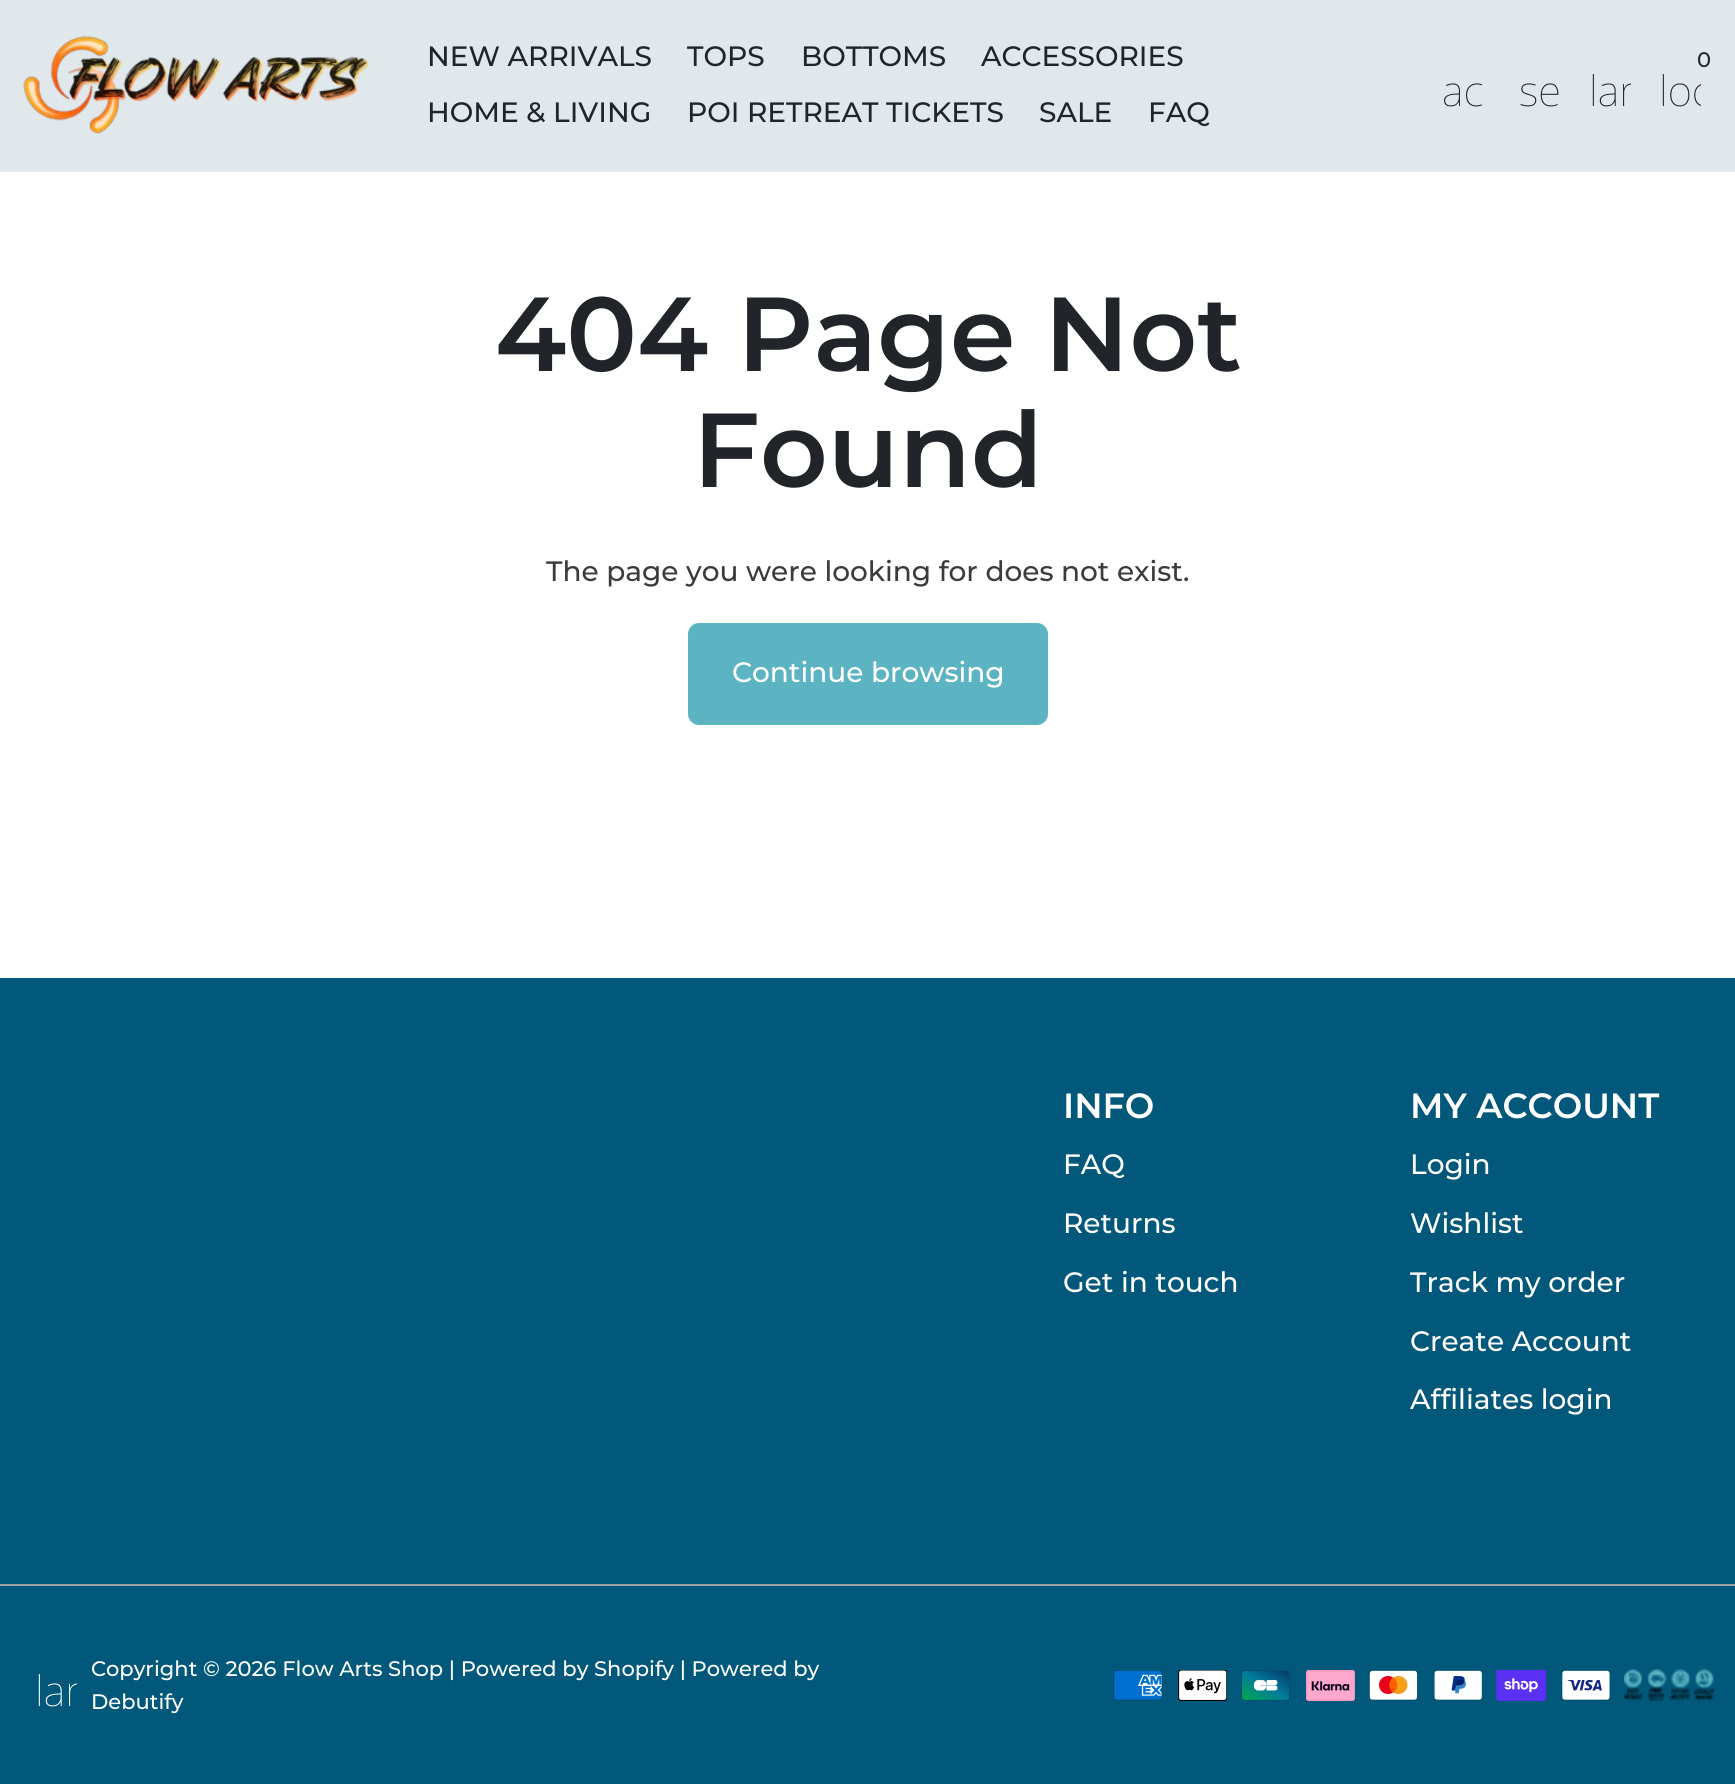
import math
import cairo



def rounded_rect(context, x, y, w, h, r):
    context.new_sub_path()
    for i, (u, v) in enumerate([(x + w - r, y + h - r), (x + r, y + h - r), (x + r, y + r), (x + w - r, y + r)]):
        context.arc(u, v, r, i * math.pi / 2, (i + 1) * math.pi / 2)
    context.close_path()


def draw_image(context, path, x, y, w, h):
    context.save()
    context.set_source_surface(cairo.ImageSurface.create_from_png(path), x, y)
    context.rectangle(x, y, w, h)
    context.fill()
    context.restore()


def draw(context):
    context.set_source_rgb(1, 1, 1)
    context.paint()
    context.set_source_rgb(225 / 255, 232 / 255, 236 / 255)
    context.rectangle(0, 0, 1735, 172)
    context.fill()
    draw_image(context, "images/1.png", 23, 36, 346, 98)
    context.set_source_rgb(92 / 255, 179 / 255, 193 / 255)
    rounded_rect(context, 689, 624, 358, 100, 10)
    context.fill_preserve()
    context.stroke()
    context.set_source_rgb(1 / 255, 88 / 255, 122 / 255)
    context.rectangle(0, 978, 1735, 806)
    context.fill()
    context.set_source_rgb(159 / 255, 159 / 255, 159 / 255)
    context.rectangle(0, 1584, 1735, 2)
    context.fill()
    draw_image(context, "images/2.png", 1113, 1670, 50, 31)
    draw_image(context, "images/3.png", 1178, 1670, 49, 31)
    draw_image(context, "images/4.png", 1241, 1670, 50, 31)
    draw_image(context, "images/5.png", 1306, 1670, 49, 31)
    draw_image(context, "images/6.png", 1369, 1670, 49, 31)
    draw_image(context, "images/7.png", 1433, 1670, 49, 31)
    draw_image(context, "images/8.png", 1496, 1670, 51, 31)
    draw_image(context, "images/9.png", 1561, 1670, 49, 31)
    draw_image(context, "images/10.png", 1624, 1669, 91, 33)
    context.select_font_face("Montserrat Medium")
    context.set_font_size(28)
    context.set_source_rgb(33 / 255, 37 / 255, 41 / 255)
    context.move_to(427, 66)
    context.show_text("NEW ARRIVALS")
    context.move_to(687, 66)
    context.show_text("TOPS")
    context.move_to(801, 66)
    context.show_text("BOTTOMS")
    context.move_to(981, 66)
    context.show_text("ACCESSORIES")
    context.move_to(427, 122)
    context.show_text("HOME & LIVING")
    context.move_to(687, 122)
    context.show_text("POI RETREAT TICKETS")
    context.move_to(1039, 122)
    context.show_text("SALE")
    context.move_to(1148, 122)
    context.show_text("FAQ")
    context.select_font_face("Noto Sans Thin")
    context.set_font_size(42)
    context.move_to(1442, 106)
    context.show_text("ac")
    context.move_to(1519, 106)
    context.show_text("se")
    context.save()
    context.rectangle(1589, 65, 42, 42)
    context.clip()
    context.move_to(1589, 106)
    context.show_text("lan")
    context.restore()
    context.select_font_face("Montserrat Medium")
    context.set_font_size(21)
    context.move_to(1697, 67)
    context.show_text("0")
    context.save()
    context.rectangle(1659, 65, 42, 42)
    context.clip()
    context.select_font_face("Noto Sans Thin")
    context.set_font_size(42)
    context.move_to(1659, 106)
    context.show_text("loc")
    context.restore()
    context.select_font_face("Montserrat SemiBold")
    context.set_font_size(105)
    context.move_to(495, 371)
    context.show_text("404 Page Not")
    context.move_to(693, 487)
    context.show_text("Found")
    context.select_font_face("Montserrat Medium")
    context.set_font_size(28)
    context.set_source_rgb(57 / 255, 59 / 255, 61 / 255)
    context.move_to(546, 581)
    context.show_text("The page you were looking for does not exist.")
    context.set_source_rgb(1, 1, 1)
    context.move_to(732, 682)
    context.show_text("Continue browsing")
    context.select_font_face("Montserrat SemiBold")
    context.set_font_size(35)
    context.move_to(1063, 1118)
    context.show_text("INFO")
    context.select_font_face("Montserrat Medium")
    context.set_font_size(28)
    context.move_to(1063, 1174)
    context.show_text("FAQ")
    context.move_to(1063, 1233)
    context.show_text("Returns")
    context.move_to(1063, 1292)
    context.show_text("Get in touch")
    context.select_font_face("Montserrat SemiBold")
    context.set_font_size(35)
    context.move_to(1410, 1118)
    context.show_text("MY ACCOUNT")
    context.select_font_face("Montserrat Medium")
    context.set_font_size(28)
    context.move_to(1410, 1174)
    context.show_text("Login")
    context.move_to(1410, 1233)
    context.show_text("Wishlist")
    context.move_to(1410, 1292)
    context.show_text("Track my order")
    context.move_to(1410, 1351)
    context.show_text("Create Account")
    context.move_to(1410, 1409)
    context.show_text("Affiliates login")
    context.save()
    context.rectangle(35, 1652, 42, 67)
    context.clip()
    context.select_font_face("Noto Sans Thin")
    context.set_font_size(42)
    context.move_to(35, 1706)
    context.show_text("lan")
    context.restore()
    context.set_font_size(21)
    context.move_to(91, 1676)
    context.show_text("Copyright © 2026 Flow Arts Shop | Powered by Shopify | Powered by")
    context.move_to(91, 1709)
    context.show_text("Debutify")


surface = cairo.ImageSurface(cairo.Format.RGB24, 1735, 1784)
context = cairo.Context(surface)
options = cairo.FontOptions()
options.set_hint_metrics(cairo.HintMetrics.OFF)
options.set_hint_style(cairo.HintStyle.NONE)
context.set_font_options(options)
context.set_miter_limit(4)
draw(context)
surface.write_to_png("out.png")
